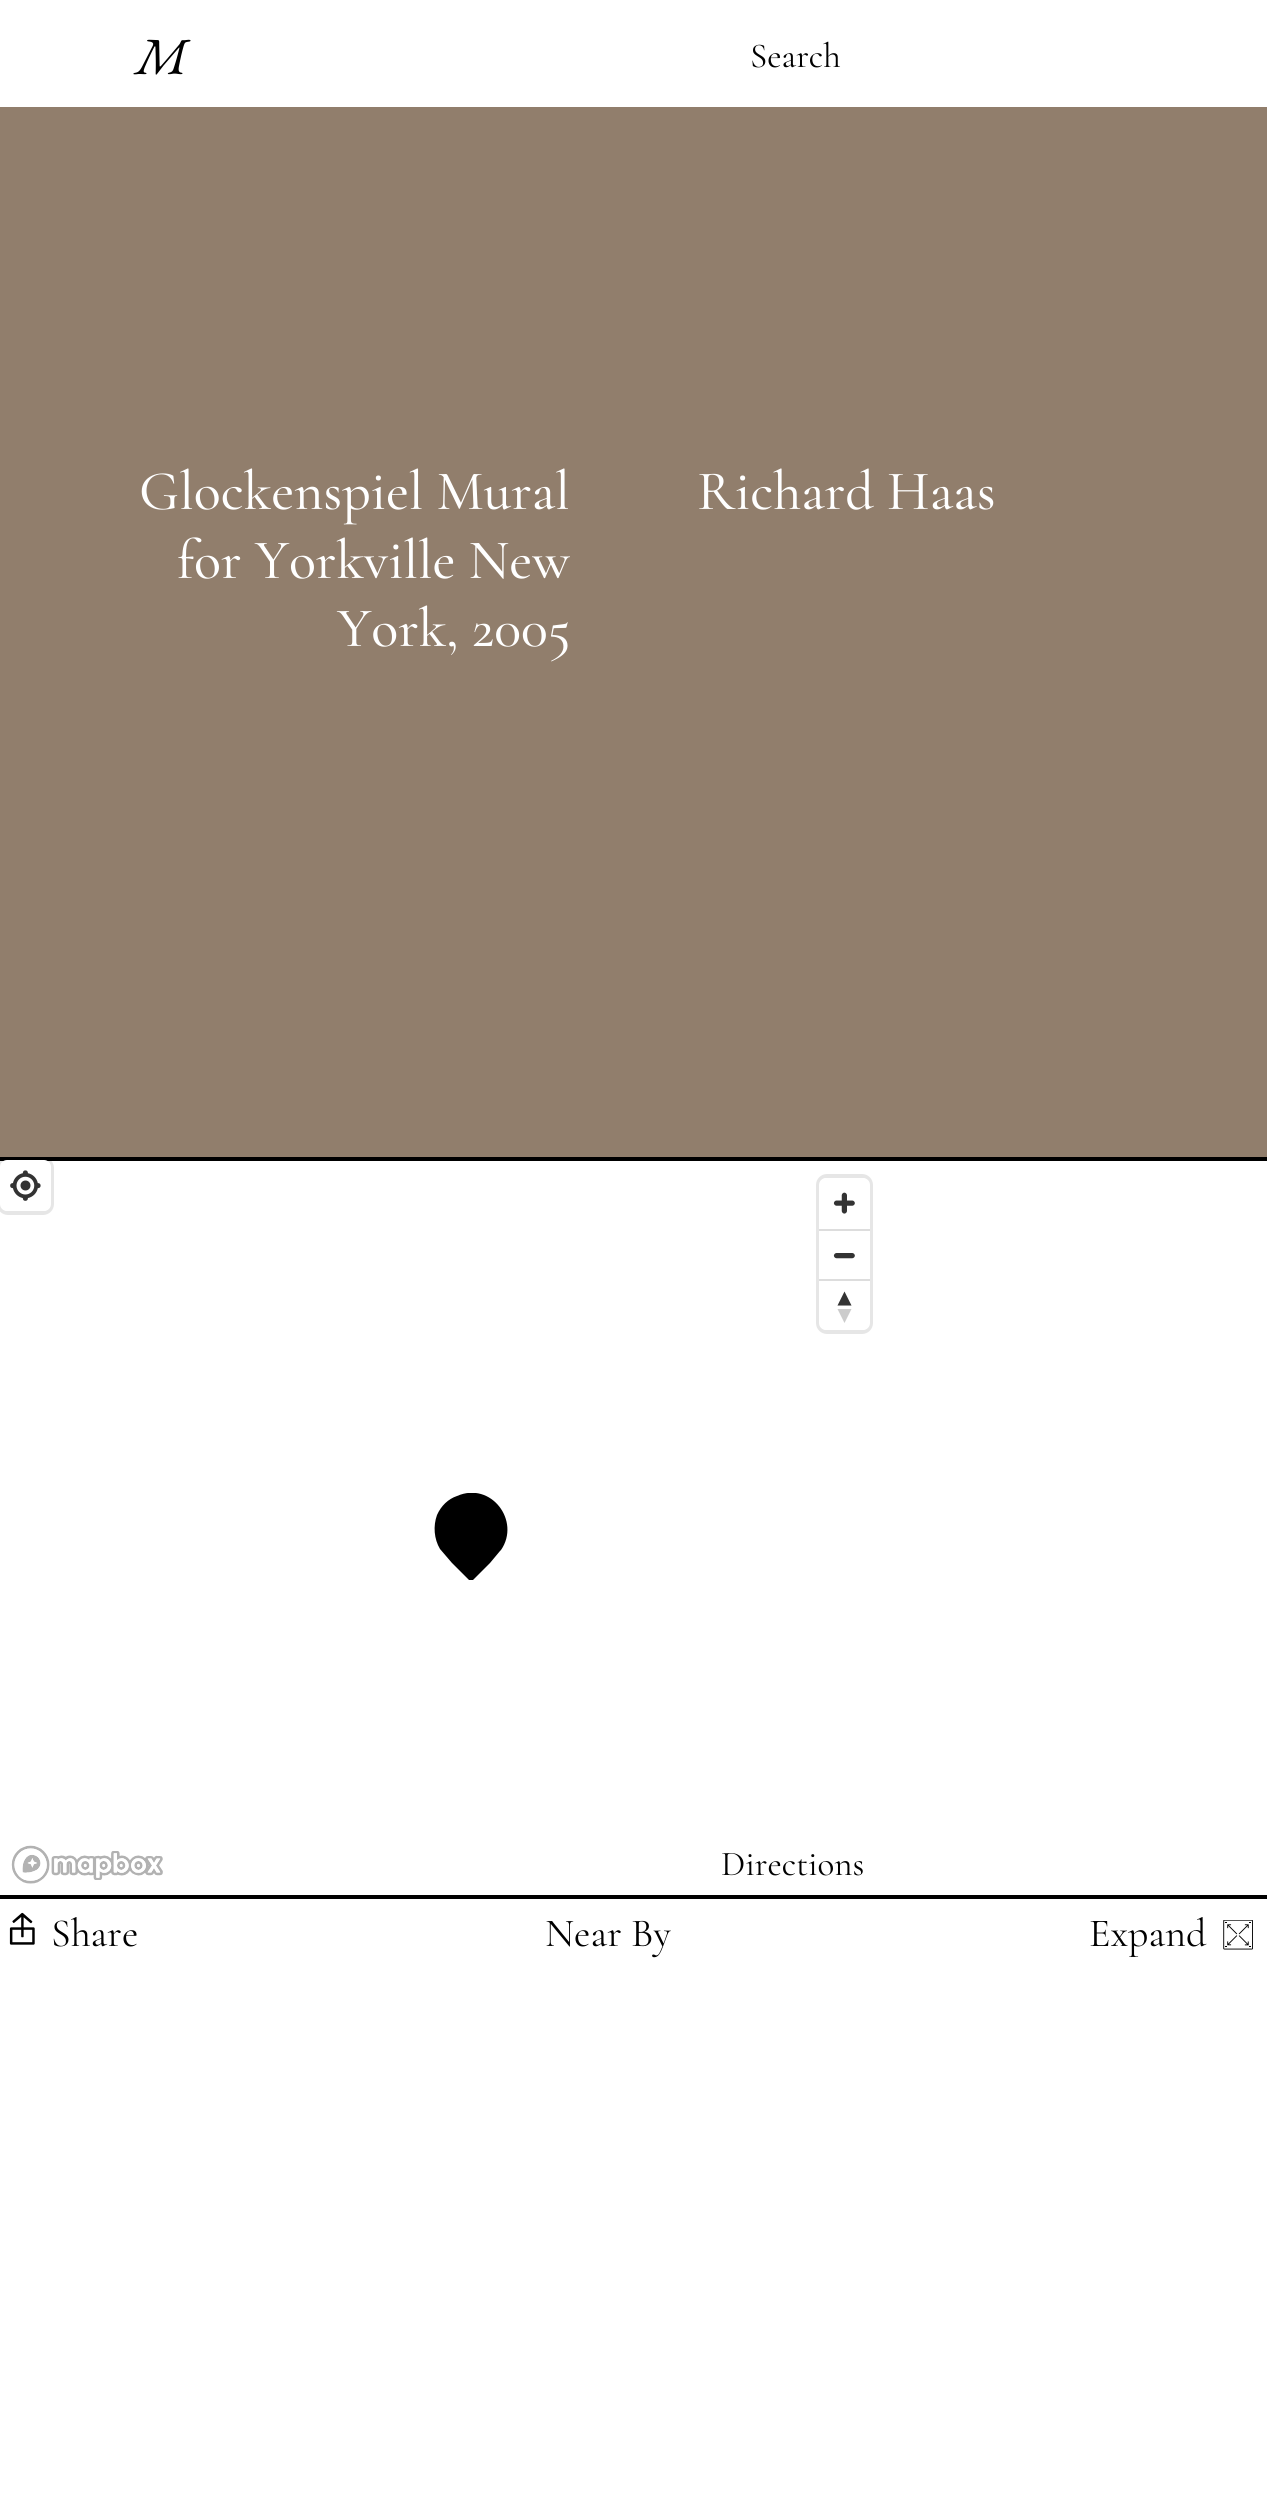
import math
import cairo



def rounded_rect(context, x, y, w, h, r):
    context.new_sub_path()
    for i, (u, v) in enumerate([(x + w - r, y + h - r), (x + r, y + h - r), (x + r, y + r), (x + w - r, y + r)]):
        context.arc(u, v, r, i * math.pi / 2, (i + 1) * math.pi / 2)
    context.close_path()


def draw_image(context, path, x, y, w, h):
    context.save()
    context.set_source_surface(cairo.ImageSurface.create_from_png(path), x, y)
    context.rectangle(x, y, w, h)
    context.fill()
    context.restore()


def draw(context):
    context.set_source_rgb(1, 1, 1)
    context.paint()
    context.set_source_rgb(145 / 255, 126 / 255, 108 / 255)
    context.rectangle(0, 107, 1267, 1050)
    context.fill()
    context.set_source_rgb(0, 0, 0)
    context.rectangle(0, 1157, 1267, 4)
    context.fill()
    draw_image(context, "images/1.png", 11, 1845, 152, 39)
    context.save()
    context.rectangle(0, 1160, 887, 735)
    context.clip()
    rounded_rect(context, -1, 1159, 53, 54, 9)
    context.set_source_rgba(0, 0, 0, 0.1)
    context.set_line_width(4)
    context.stroke()
    context.restore()
    context.set_source_rgb(1, 1, 1)
    rounded_rect(context, 0, 1160, 51, 51, 7)
    context.fill()
    draw_image(context, "images/2.png", 10, 1170, 31, 31)
    rounded_rect(context, 818, 1176, 53, 156, 9)
    context.set_source_rgb(230 / 255, 230 / 255, 230 / 255)
    context.set_line_width(4)
    context.stroke()
    context.set_source_rgb(1, 1, 1)
    rounded_rect(context, 819, 1178, 51, 152, 7)
    context.fill()
    draw_image(context, "images/3.png", 833, 1192, 22, 22)
    context.set_source_rgb(221 / 255, 221 / 255, 221 / 255)
    context.rectangle(819, 1229, 51, 2)
    context.fill()
    draw_image(context, "images/4.png", 833, 1253, 22, 6)
    context.rectangle(819, 1279, 51, 2)
    context.fill()
    context.set_source_rgb(51 / 255, 51 / 255, 51 / 255)
    context.new_path()
    context.move_to(837.5, 1305.5)
    context.line_to(844.5, 1291.5)
    context.line_to(851.5, 1305.5)
    context.close_path()
    context.fill()
    context.set_source_rgb(204 / 255, 204 / 255, 204 / 255)
    context.new_path()
    context.move_to(837.5, 1309)
    context.line_to(844.5, 1323)
    context.line_to(851.5, 1309)
    context.close_path()
    context.fill()
    context.save()
    context.rectangle(427, 1493, 88, 87)
    context.clip()
    context.set_source_rgb(0, 0, 0)
    context.new_path()
    context.move_to(501, 1550)
    context.curve_to(521, 1521, 491, 1481, 457, 1496)
    context.curve_to(448, 1499, 441, 1506, 437, 1515)
    context.curve_to(433, 1526, 434, 1539, 440, 1549)
    context.line_to(452, 1563)
    context.line_to(471, 1582)
    context.line_to(490, 1563)
    context.line_to(500, 1551)
    context.close_path()
    context.fill()
    context.restore()
    context.set_source_rgb(0, 0, 0)
    context.rectangle(0, 1895, 1267, 4)
    context.fill()
    draw_image(context, "images/5.png", 9, 1912, 26, 33)
    draw_image(context, "images/6.png", 1223, 1920, 30, 30)
    context.select_font_face("EB Garamond", cairo.FontSlant.ITALIC)
    context.set_font_size(52)
    context.move_to(136, 74)
    context.show_text("M")
    context.select_font_face("Cormorant Garamond")
    context.set_font_size(35)
    context.move_to(750, 67)
    context.show_text("Search")
    context.select_font_face("Cormorant Garamond Medium")
    context.set_font_size(56)
    context.set_source_rgb(1, 1, 1)
    context.move_to(139, 509)
    context.show_text("Glockenspiel Mural")
    context.move_to(177, 578)
    context.show_text("for Yorkville New")
    context.move_to(337, 646)
    context.show_text("York, 2005")
    context.move_to(697, 509)
    context.show_text("Richard Haas")
    context.select_font_face("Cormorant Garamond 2")
    context.set_font_size(35)
    context.set_source_rgb(0, 0, 0)
    context.move_to(721, 1875)
    context.show_text("Directions")
    context.set_font_size(40)
    context.move_to(51, 1946)
    context.show_text("Share")
    context.move_to(545, 1946)
    context.show_text("Near By")
    context.move_to(1089, 1946)
    context.show_text("Expand")


surface = cairo.ImageSurface(cairo.Format.RGB24, 1267, 2500)
context = cairo.Context(surface)
options = cairo.FontOptions()
options.set_hint_metrics(cairo.HintMetrics.OFF)
options.set_hint_style(cairo.HintStyle.NONE)
context.set_font_options(options)
context.set_miter_limit(4)
draw(context)
surface.write_to_png("out.png")
